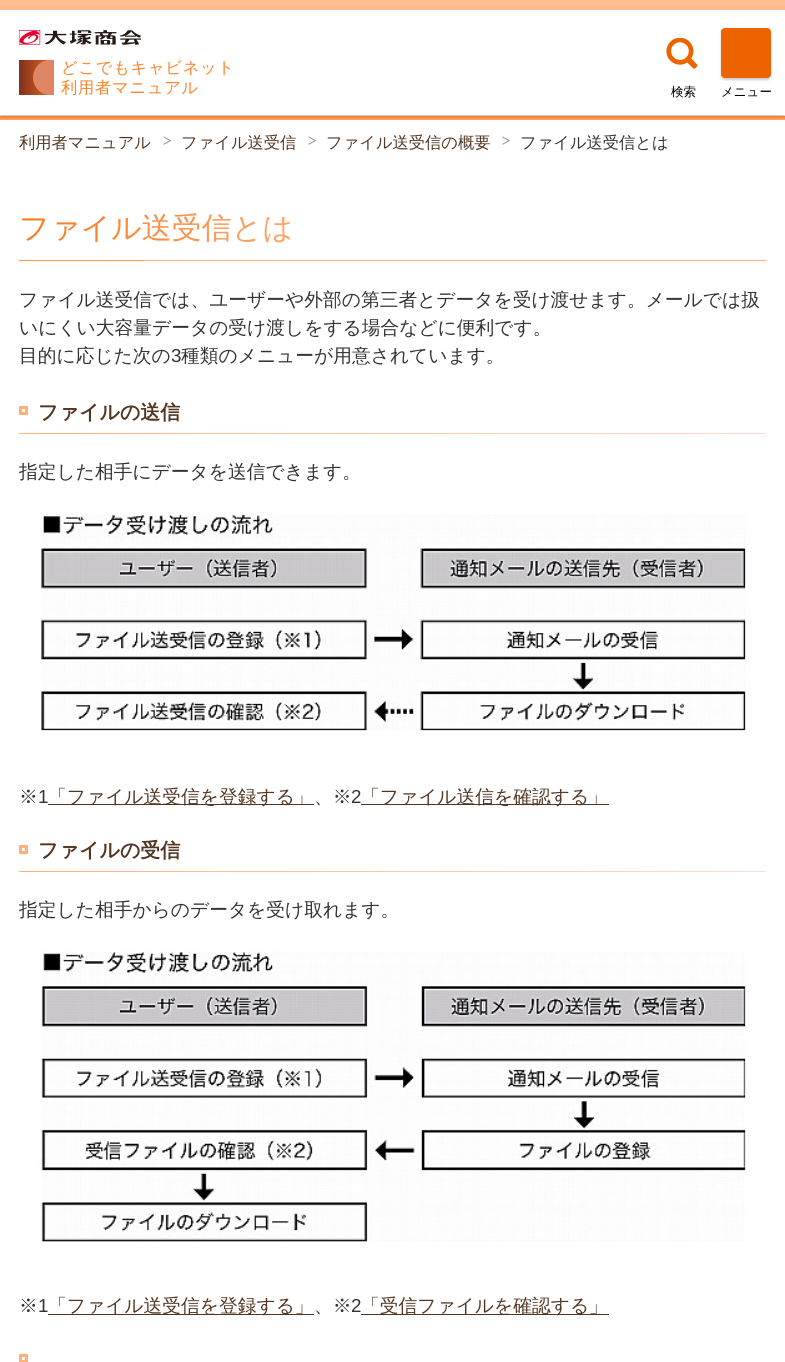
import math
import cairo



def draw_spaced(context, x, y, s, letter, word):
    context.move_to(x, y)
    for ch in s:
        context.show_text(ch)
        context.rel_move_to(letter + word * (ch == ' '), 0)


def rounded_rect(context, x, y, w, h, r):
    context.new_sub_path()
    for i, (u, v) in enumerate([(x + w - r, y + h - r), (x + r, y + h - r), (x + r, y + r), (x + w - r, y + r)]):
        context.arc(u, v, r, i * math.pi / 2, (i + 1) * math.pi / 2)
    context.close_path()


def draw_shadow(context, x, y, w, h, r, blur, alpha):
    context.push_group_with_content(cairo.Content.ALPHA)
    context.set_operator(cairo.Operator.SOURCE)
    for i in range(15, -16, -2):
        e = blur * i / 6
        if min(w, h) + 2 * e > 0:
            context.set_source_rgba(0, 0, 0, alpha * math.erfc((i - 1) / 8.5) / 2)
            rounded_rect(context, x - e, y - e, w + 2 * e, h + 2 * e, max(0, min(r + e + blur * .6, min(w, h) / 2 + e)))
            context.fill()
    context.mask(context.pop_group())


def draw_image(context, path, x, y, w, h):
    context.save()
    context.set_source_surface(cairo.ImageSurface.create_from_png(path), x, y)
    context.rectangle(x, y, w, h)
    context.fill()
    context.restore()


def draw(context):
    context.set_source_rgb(1, 1, 1)
    context.paint()
    context.save()
    context.rectangle(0, 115, 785, 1)
    context.clip()
    context.set_source_rgb(0, 0, 0)
    draw_shadow(context, 0, 3, 785, 115, 0, 1, 0.2)
    context.restore()
    context.set_source_rgb(1, 189 / 255, 143 / 255)
    context.rectangle(0, 0, 785, 10)
    context.fill()
    draw_image(context, "images/1.png", 19, 30, 122, 15)
    gradient = cairo.LinearGradient(19, 77, 54, 77)
    gradient.add_color_stop_rgba(0, 126 / 255, 48 / 255, 31 / 255, 1)
    gradient.add_color_stop_rgba(1, 236 / 255, 105 / 255, 29 / 255, 1)
    context.set_source(gradient)
    context.rectangle(19, 60, 35, 35)
    context.fill()
    context.save()
    context.rectangle(19, 60, 35, 35)
    context.clip()
    context.set_source_rgb(223 / 255, 135 / 255, 101 / 255)
    context.set_fill_rule(cairo.FillRule.EVEN_ODD)
    context.new_path()
    context.move_to(50, 60)
    context.curve_to(60, 60, 68, 68, 68, 77.5)
    context.curve_to(68, 87, 60, 95, 50, 95)
    context.curve_to(40.5, 95, 33, 87, 33, 77.5)
    context.curve_to(33, 68, 40.5, 60, 50, 60)
    context.close_path()
    context.fill()
    context.restore()
    draw_image(context, "images/2.png", 666, 38, 32, 31)
    context.set_source_rgb(0, 0, 0)
    draw_shadow(context, 721, 30, 50, 50, 4, 1, 0.2)
    context.set_source_rgb(237 / 255, 99 / 255, 0)
    rounded_rect(context, 721, 28, 50, 50, 4)
    context.fill()
    gradient = cairo.LinearGradient(393, 116, 393, 120)
    gradient.add_color_stop_rgba(0, 247 / 255, 121 / 255, 31 / 255, 1)
    gradient.add_color_stop_rgba(1, 1, 167 / 255, 108 / 255, 1)
    context.set_source(gradient)
    context.rectangle(0, 116, 785, 4)
    context.fill()
    draw_image(context, "images/3.png", 163, 136, 9, 9)
    draw_image(context, "images/3.png", 308, 136, 9, 9)
    draw_image(context, "images/4.png", 502, 136, 8, 9)
    context.set_source_rgb(1, 177 / 255, 121 / 255)
    context.rectangle(144, 260, 622, 1)
    context.fill()
    context.set_source_rgb(1, 150 / 255, 75 / 255)
    context.rectangle(19, 260, 125, 1)
    context.fill()
    context.rectangle(20.5, 407.5, 6, 6)
    context.set_source_rgb(1, 177 / 255, 121 / 255)
    context.set_line_width(3)
    context.stroke()
    gradient = cairo.LinearGradient(19, 433, 766, 433)
    gradient.add_color_stop_rgba(0, 1, 177 / 255, 121 / 255, 1)
    gradient.add_color_stop_rgba(1, 248 / 255, 223 / 255, 213 / 255, 1)
    context.set_source(gradient)
    context.rectangle(19, 433, 747, 1)
    context.fill()
    draw_image(context, "images/5.png", 40, 512, 706, 219)
    context.set_source_rgb(82 / 255, 54 / 255, 33 / 255)
    context.rectangle(48, 804, 266, 1)
    context.fill()
    context.rectangle(361, 804, 248, 1)
    context.fill()
    context.rectangle(20.5, 846.5, 6, 6)
    context.set_source_rgb(1, 177 / 255, 121 / 255)
    context.stroke()
    gradient = cairo.LinearGradient(19, 872, 766, 872)
    gradient.add_color_stop_rgba(0, 1, 177 / 255, 121 / 255, 1)
    gradient.add_color_stop_rgba(1, 248 / 255, 223 / 255, 213 / 255, 1)
    context.set_source(gradient)
    context.rectangle(19, 871, 747, 1)
    context.fill()
    draw_image(context, "images/6.png", 39, 950, 707, 292)
    context.set_source_rgb(82 / 255, 54 / 255, 33 / 255)
    context.rectangle(48, 1314, 266, 1)
    context.fill()
    context.rectangle(361, 1314, 248, 1)
    context.fill()
    context.rectangle(20.5, 1355.5, 6, 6)
    context.set_source_rgb(1, 177 / 255, 121 / 255)
    context.stroke()
    context.select_font_face("WenQuanYi Zen Hei Medium")
    context.set_font_size(16.25)
    context.set_source_rgb(1, 130 / 255, 40 / 255)
    draw_spaced(context, 61, 73, "どこでもキャビネット", 0.75, 0)
    draw_spaced(context, 61, 93, "利用者マニュアル", 0.75, 0)
    context.set_font_size(12.5)
    context.set_source_rgb(0, 0, 0)
    context.move_to(671, 96)
    context.show_text("検索")
    context.move_to(721, 96)
    context.show_text("メニュー")
    context.set_font_size(16.25)
    context.set_source_rgb(82 / 255, 54 / 255, 33 / 255)
    context.move_to(19, 148)
    context.show_text("利用者マニュアル")
    context.move_to(181, 148)
    context.show_text("ファイル送受信")
    context.move_to(326, 148)
    context.show_text("ファイル送受信の概要")
    context.set_source_rgb(51 / 255, 51 / 255, 51 / 255)
    context.move_to(520, 148)
    context.show_text("ファイル送受信とは")
    context.set_font_size(30)
    gradient = cairo.LinearGradient(19, 228, 293, 228)
    gradient.add_color_stop_rgba(0, 247 / 255, 121 / 255, 31 / 255, 1)
    gradient.add_color_stop_rgba(1, 1, 167 / 255, 108 / 255, 1)
    context.set_source(gradient)
    context.move_to(19, 238)
    context.show_text("ファイル送受信とは")
    context.set_font_size(18.75)
    context.set_source_rgb(51 / 255, 51 / 255, 51 / 255)
    context.move_to(19, 306)
    context.show_text("ファイル送受信では、ユーザーや外部の第三者とデータを受け渡せます。メールでは扱")
    context.move_to(19, 334)
    context.show_text("いにくい大容量データの受け渡しをする場合などに便利です。")
    context.move_to(19, 362)
    context.show_text("目的に応じた次の")
    context.select_font_face("Liberation Sans")
    context.move_to(171, 362)
    context.show_text("3")
    context.select_font_face("WenQuanYi Zen Hei Medium")
    context.move_to(181, 362)
    context.show_text("種類のメニューが用意されています。")
    context.select_font_face("WenQuanYi Zen Hei", cairo.FontSlant.NORMAL, cairo.FontWeight.BOLD)
    context.set_font_size(20)
    context.set_source_rgb(82 / 255, 54 / 255, 33 / 255)
    context.move_to(38, 419)
    context.show_text("ファイルの送信")
    context.select_font_face("WenQuanYi Zen Hei Medium")
    context.set_font_size(18.75)
    context.set_source_rgb(51 / 255, 51 / 255, 51 / 255)
    context.move_to(19, 478)
    context.show_text("指定した相手にデータを送信できます。")
    context.move_to(19, 803)
    context.show_text("※")
    context.select_font_face("Liberation Sans")
    context.move_to(38, 803)
    context.show_text("1")
    context.select_font_face("WenQuanYi Zen Hei Medium")
    context.set_source_rgb(82 / 255, 54 / 255, 33 / 255)
    context.move_to(48, 803)
    context.show_text("「ファイル送受信を登録する」")
    context.set_source_rgb(51 / 255, 51 / 255, 51 / 255)
    context.move_to(314, 803)
    context.show_text("、※")
    context.select_font_face("Liberation Sans")
    context.move_to(351, 803)
    context.show_text("2")
    context.select_font_face("WenQuanYi Zen Hei Medium")
    context.set_source_rgb(82 / 255, 54 / 255, 33 / 255)
    context.move_to(361, 803)
    context.show_text("「ファイル送信を確認する」")
    context.select_font_face("WenQuanYi Zen Hei", cairo.FontSlant.NORMAL, cairo.FontWeight.BOLD)
    context.set_font_size(20)
    context.move_to(38, 857)
    context.show_text("ファイルの受信")
    context.select_font_face("WenQuanYi Zen Hei Medium")
    context.set_font_size(18.75)
    context.set_source_rgb(51 / 255, 51 / 255, 51 / 255)
    context.move_to(19, 916)
    context.show_text("指定した相手からのデータを受け取れます。")
    context.move_to(19, 1312)
    context.show_text("※")
    context.select_font_face("Liberation Sans")
    context.move_to(38, 1312)
    context.show_text("1")
    context.select_font_face("WenQuanYi Zen Hei Medium")
    context.set_source_rgb(82 / 255, 54 / 255, 33 / 255)
    context.move_to(48, 1312)
    context.show_text("「ファイル送受信を登録する」")
    context.set_source_rgb(51 / 255, 51 / 255, 51 / 255)
    context.move_to(314, 1312)
    context.show_text("、※")
    context.select_font_face("Liberation Sans")
    context.move_to(351, 1312)
    context.show_text("2")
    context.select_font_face("WenQuanYi Zen Hei Medium")
    context.set_source_rgb(82 / 255, 54 / 255, 33 / 255)
    context.move_to(361, 1312)
    context.show_text("「受信ファイルを確認する」")


surface = cairo.ImageSurface(cairo.Format.RGB24, 785, 1362)
context = cairo.Context(surface)
options = cairo.FontOptions()
options.set_hint_metrics(cairo.HintMetrics.OFF)
options.set_hint_style(cairo.HintStyle.NONE)
context.set_font_options(options)
context.set_miter_limit(4)
draw(context)
surface.write_to_png("out.png")
